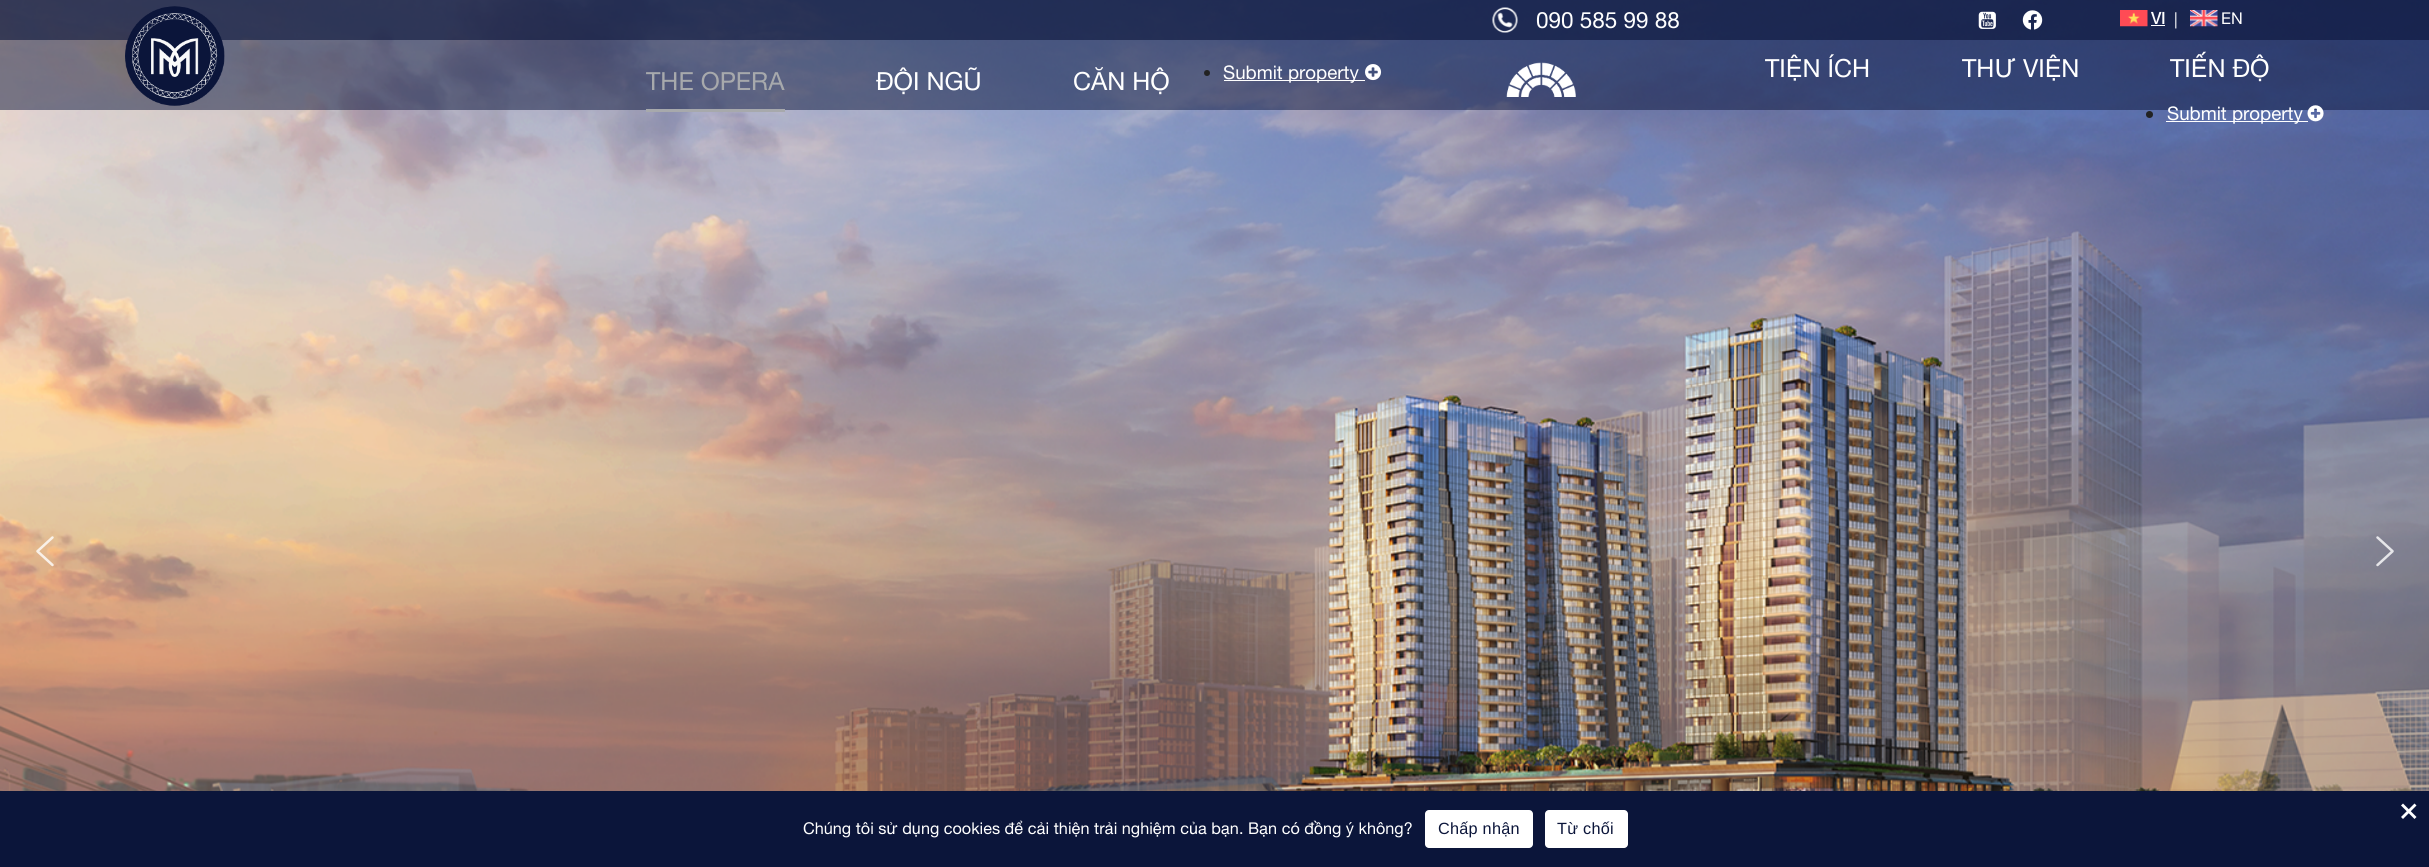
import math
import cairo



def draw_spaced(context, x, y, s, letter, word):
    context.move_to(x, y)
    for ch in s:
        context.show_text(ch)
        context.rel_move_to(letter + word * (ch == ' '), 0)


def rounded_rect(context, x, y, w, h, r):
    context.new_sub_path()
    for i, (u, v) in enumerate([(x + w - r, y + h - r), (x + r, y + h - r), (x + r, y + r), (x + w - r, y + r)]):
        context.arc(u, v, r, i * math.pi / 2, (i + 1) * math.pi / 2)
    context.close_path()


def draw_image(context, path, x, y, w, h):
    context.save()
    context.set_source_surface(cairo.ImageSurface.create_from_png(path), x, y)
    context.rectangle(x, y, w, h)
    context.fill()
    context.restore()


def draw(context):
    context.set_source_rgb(1, 1, 1)
    context.paint()
    draw_image(context, "images/1.png", 0, 0, 2429, 791)
    draw_image(context, "images/2.png", 36, 536, 18, 31)
    draw_image(context, "images/3.png", 2376, 536, 18, 31)
    context.set_source_rgba(11 / 255, 21 / 255, 58 / 255, 0.8)
    context.rectangle(0, 0, 2429, 40)
    context.fill()
    context.set_source_rgba(11 / 255, 21 / 255, 58 / 255, 0.5)
    context.rectangle(0, 40, 2429, 70)
    context.fill()
    draw_image(context, "images/4.png", 125, 6, 100, 100)
    draw_image(context, "images/5.png", 1492, 7, 26, 26)
    draw_image(context, "images/6.png", 1978, 11, 18, 18)
    draw_image(context, "images/7.png", 2022, 10, 21, 20)
    draw_image(context, "images/8.png", 2120, 10, 28, 17)
    context.set_source_rgb(1, 1, 1)
    context.rectangle(2151, 25, 14, 1)
    context.fill()
    draw_image(context, "images/9.png", 2190, 10, 28, 17)
    context.set_source_rgb(167 / 255, 169 / 255, 172 / 255)
    context.rectangle(646, 109, 139, 3)
    context.fill()
    context.set_source_rgb(34 / 255, 34 / 255, 34 / 255)
    context.arc(1207, 73, 3, 0, 2 * math.pi)
    context.fill()
    context.set_source_rgb(1, 1, 1)
    context.rectangle(1224, 80, 141, 1)
    context.fill()
    draw_image(context, "images/10.png", 1365, 64, 17, 17)
    draw_image(context, "images/11.png", 1506, 62, 70, 35)
    context.set_source_rgb(34 / 255, 34 / 255, 34 / 255)
    context.arc(2149.5, 114.5, 3.5, 0, 2 * math.pi)
    context.fill()
    context.set_source_rgb(1, 1, 1)
    context.rectangle(2166, 121, 142, 1)
    context.fill()
    draw_image(context, "images/12.png", 2307, 105, 17, 17)
    context.set_source_rgb(11 / 255, 21 / 255, 58 / 255)
    context.rectangle(0, 791, 2429, 76)
    context.fill()
    context.set_source_rgb(1, 1, 1)
    context.new_path()
    context.move_to(2414.5, 803.5)
    context.line_to(2416.5, 805.5)
    context.line_to(2403, 819)
    context.line_to(2401, 817)
    context.close_path()
    context.fill()
    context.new_path()
    context.move_to(2401, 805.5)
    context.line_to(2403, 803.5)
    context.line_to(2416.5, 817)
    context.line_to(2414.5, 819)
    context.close_path()
    context.fill()
    rounded_rect(context, 1425, 810, 108, 38, 4)
    context.fill()
    rounded_rect(context, 1545, 810, 83, 38, 4)
    context.fill()
    context.select_font_face("Helvetica Neue")
    context.set_font_size(22.5)
    context.move_to(1536, 28)
    context.show_text("090 585 99 88")
    context.select_font_face("Helvetica Neue", cairo.FontSlant.NORMAL, cairo.FontWeight.BOLD)
    context.set_font_size(16.25)
    context.move_to(2151, 24)
    context.show_text("VI")
    context.select_font_face("Helvetica Neue")
    context.move_to(2174, 25)
    context.show_text("|")
    context.move_to(2221, 24)
    context.show_text("EN")
    context.set_font_size(25)
    context.set_source_rgb(167 / 255, 169 / 255, 172 / 255)
    context.move_to(646, 90)
    context.show_text("THE OPERA")
    context.set_source_rgb(1, 1, 1)
    context.move_to(876, 90)
    context.show_text("ĐỘI NGŨ")
    context.move_to(1073, 90)
    context.show_text("CĂN HỘ")
    context.set_font_size(18.75)
    context.move_to(1223, 79)
    context.show_text("Submit property")
    context.set_font_size(25)
    context.move_to(1765, 77)
    context.show_text("TIỆN ÍCH")
    context.move_to(1962, 77)
    context.show_text("THƯ VIỆN")
    context.move_to(2170, 77)
    context.show_text("TIẾN ĐỘ")
    context.set_font_size(18.75)
    context.move_to(2167, 120)
    context.show_text("Submit property")
    context.set_font_size(16.25)
    context.move_to(803, 834)
    context.show_text("Chúng tôi sử dụng cookies để cải thiện trải nghiệm của bạn. Bạn có đồng ý không?")
    context.select_font_face("Liberation Sans")
    context.set_source_rgb(11 / 255, 21 / 255, 58 / 255)
    draw_spaced(context, 1438, 834, "Chấp nhận", 0.25, 0)
    draw_spaced(context, 1557, 834, "Từ chối", 0.25, 0)


surface = cairo.ImageSurface(cairo.Format.RGB24, 2429, 867)
context = cairo.Context(surface)
options = cairo.FontOptions()
options.set_hint_metrics(cairo.HintMetrics.OFF)
options.set_hint_style(cairo.HintStyle.NONE)
context.set_font_options(options)
context.set_miter_limit(4)
draw(context)
surface.write_to_png("out.png")
